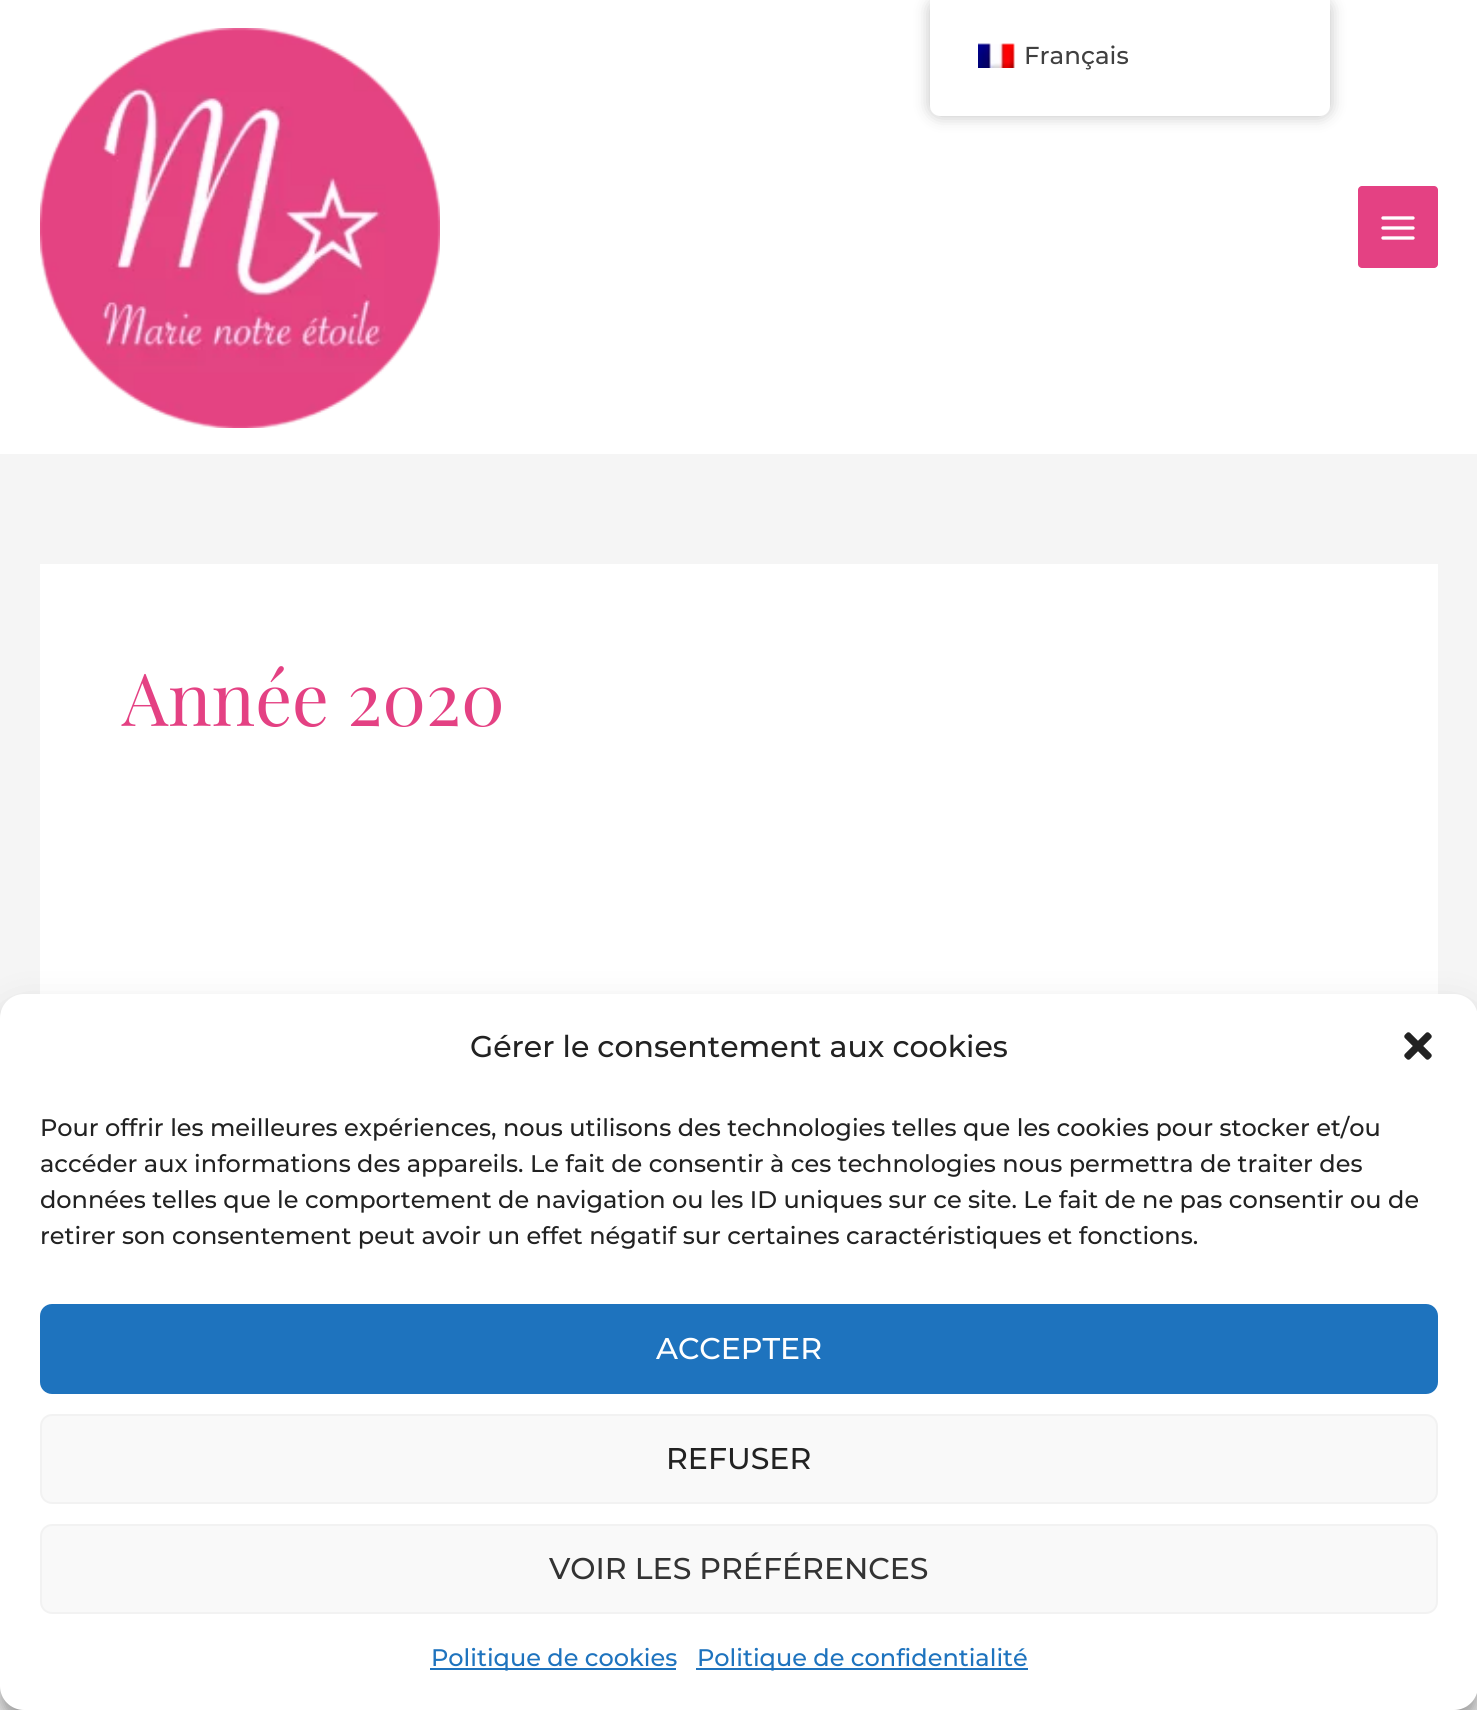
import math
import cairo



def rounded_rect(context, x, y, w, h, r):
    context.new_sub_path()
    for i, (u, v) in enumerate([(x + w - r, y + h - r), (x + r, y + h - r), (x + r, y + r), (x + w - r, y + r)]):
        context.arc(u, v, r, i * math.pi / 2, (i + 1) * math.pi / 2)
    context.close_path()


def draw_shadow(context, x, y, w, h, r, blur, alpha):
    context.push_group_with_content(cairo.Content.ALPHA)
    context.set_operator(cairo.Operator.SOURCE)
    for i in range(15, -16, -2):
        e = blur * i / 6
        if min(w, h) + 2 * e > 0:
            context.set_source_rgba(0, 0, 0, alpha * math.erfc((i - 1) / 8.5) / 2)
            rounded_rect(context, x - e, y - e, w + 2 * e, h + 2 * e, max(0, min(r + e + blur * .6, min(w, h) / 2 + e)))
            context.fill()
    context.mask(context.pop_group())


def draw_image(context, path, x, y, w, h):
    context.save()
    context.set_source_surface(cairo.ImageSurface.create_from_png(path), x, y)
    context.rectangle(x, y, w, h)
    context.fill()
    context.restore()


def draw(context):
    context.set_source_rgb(245 / 255, 245 / 255, 245 / 255)
    context.paint()
    context.set_source_rgb(1, 1, 1)
    context.rectangle(0, 0, 1477, 454)
    context.fill()
    context.set_source_rgb(0, 0, 0)
    draw_shadow(context, 930, 0, 400, 116, 10, 8, 0.25)
    context.set_source_rgb(1, 1, 1)
    context.new_path()
    context.move_to(930, 0)
    context.line_to(1330, 0)
    context.line_to(1330, 106)
    context.curve_to(1330, 111.5, 1325.5, 116, 1320, 116)
    context.line_to(940, 116)
    context.curve_to(934.5, 116, 930, 111.5, 930, 106)
    context.close_path()
    context.fill()
    draw_image(context, "images/1.png", 978, 43, 37, 25)
    draw_image(context, "images/2.png", 40, 28, 400, 400)
    context.set_source_rgb(228 / 255, 65 / 255, 131 / 255)
    rounded_rect(context, 1358, 186, 80, 82, 4)
    context.fill()
    draw_image(context, "images/3.png", 1381, 216, 34, 24)
    context.set_source_rgb(1, 1, 1)
    context.rectangle(40, 564, 1398, 430)
    context.fill()
    context.set_source_rgb(0, 0, 0)
    draw_shadow(context, 0, 1006, 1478, 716, 24, 6, 0.23)
    draw_shadow(context, 0, 1014, 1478, 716, 24, 20, 0.19)
    context.set_source_rgb(1, 1, 1)
    rounded_rect(context, 0, 994, 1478, 716, 24)
    context.fill()
    draw_image(context, "images/4.png", 1404, 1032, 28, 28)
    context.set_source_rgb(30 / 255, 115 / 255, 190 / 255)
    rounded_rect(context, 41, 1305, 1396, 88, 11)
    context.fill_preserve()
    context.stroke()
    context.set_source_rgb(249 / 255, 249 / 255, 249 / 255)
    rounded_rect(context, 41, 1415, 1396, 88, 11)
    context.fill_preserve()
    context.set_source_rgb(242 / 255, 242 / 255, 242 / 255)
    context.stroke()
    context.set_source_rgb(249 / 255, 249 / 255, 249 / 255)
    rounded_rect(context, 41, 1525, 1396, 88, 11)
    context.fill_preserve()
    context.set_source_rgb(242 / 255, 242 / 255, 242 / 255)
    context.stroke()
    context.set_source_rgb(30 / 255, 115 / 255, 190 / 255)
    context.rectangle(430, 1668, 246, 2)
    context.fill()
    context.rectangle(696, 1668, 332, 2)
    context.fill()
    context.select_font_face("Montserrat Medium")
    context.set_font_size(24.5)
    context.set_source_rgb(64 / 255, 64 / 255, 64 / 255)
    context.move_to(1024, 64)
    context.show_text("Français")
    context.select_font_face("Playfair Display")
    context.set_font_size(73)
    context.set_source_rgb(228 / 255, 65 / 255, 131 / 255)
    context.move_to(122, 726)
    context.show_text("Année 2020")
    context.select_font_face("Montserrat Medium")
    context.set_font_size(30)
    context.set_source_rgb(34 / 255, 34 / 255, 34 / 255)
    context.move_to(470, 1057)
    context.show_text("Gérer le consentement aux cookies")
    context.set_font_size(24)
    context.move_to(40, 1136)
    context.show_text("Pour offrir les meilleures expériences, nous utilisons des technologies telles que les cookies pour stocker et/ou")
    context.move_to(40, 1172)
    context.show_text("accéder aux informations des appareils. Le fait de consentir à ces technologies nous permettra de traiter des")
    context.move_to(40, 1208)
    context.show_text("données telles que le comportement de navigation ou les ID uniques sur ce site. Le fait de ne pas consentir ou de")
    context.move_to(40, 1244)
    context.show_text("retirer son consentement peut avoir un effet négatif sur certaines caractéristiques et fonctions.")
    context.set_font_size(30)
    context.set_source_rgb(1, 1, 1)
    context.move_to(656, 1359)
    context.show_text("ACCEPTER")
    context.set_source_rgb(34 / 255, 34 / 255, 34 / 255)
    context.move_to(666, 1469)
    context.show_text("REFUSER")
    context.set_source_rgb(51 / 255, 51 / 255, 51 / 255)
    context.move_to(549, 1579)
    context.show_text("VOIR LES PRÉFÉRENCES")
    context.set_font_size(24)
    context.set_source_rgb(30 / 255, 115 / 255, 190 / 255)
    context.move_to(431, 1666)
    context.show_text("Politique de cookies")
    context.move_to(697, 1666)
    context.show_text("Politique de confidentialité")


surface = cairo.ImageSurface(cairo.Format.RGB24, 1477, 1710)
context = cairo.Context(surface)
options = cairo.FontOptions()
options.set_hint_metrics(cairo.HintMetrics.OFF)
options.set_hint_style(cairo.HintStyle.NONE)
context.set_font_options(options)
context.set_miter_limit(4)
draw(context)
surface.write_to_png("out.png")
